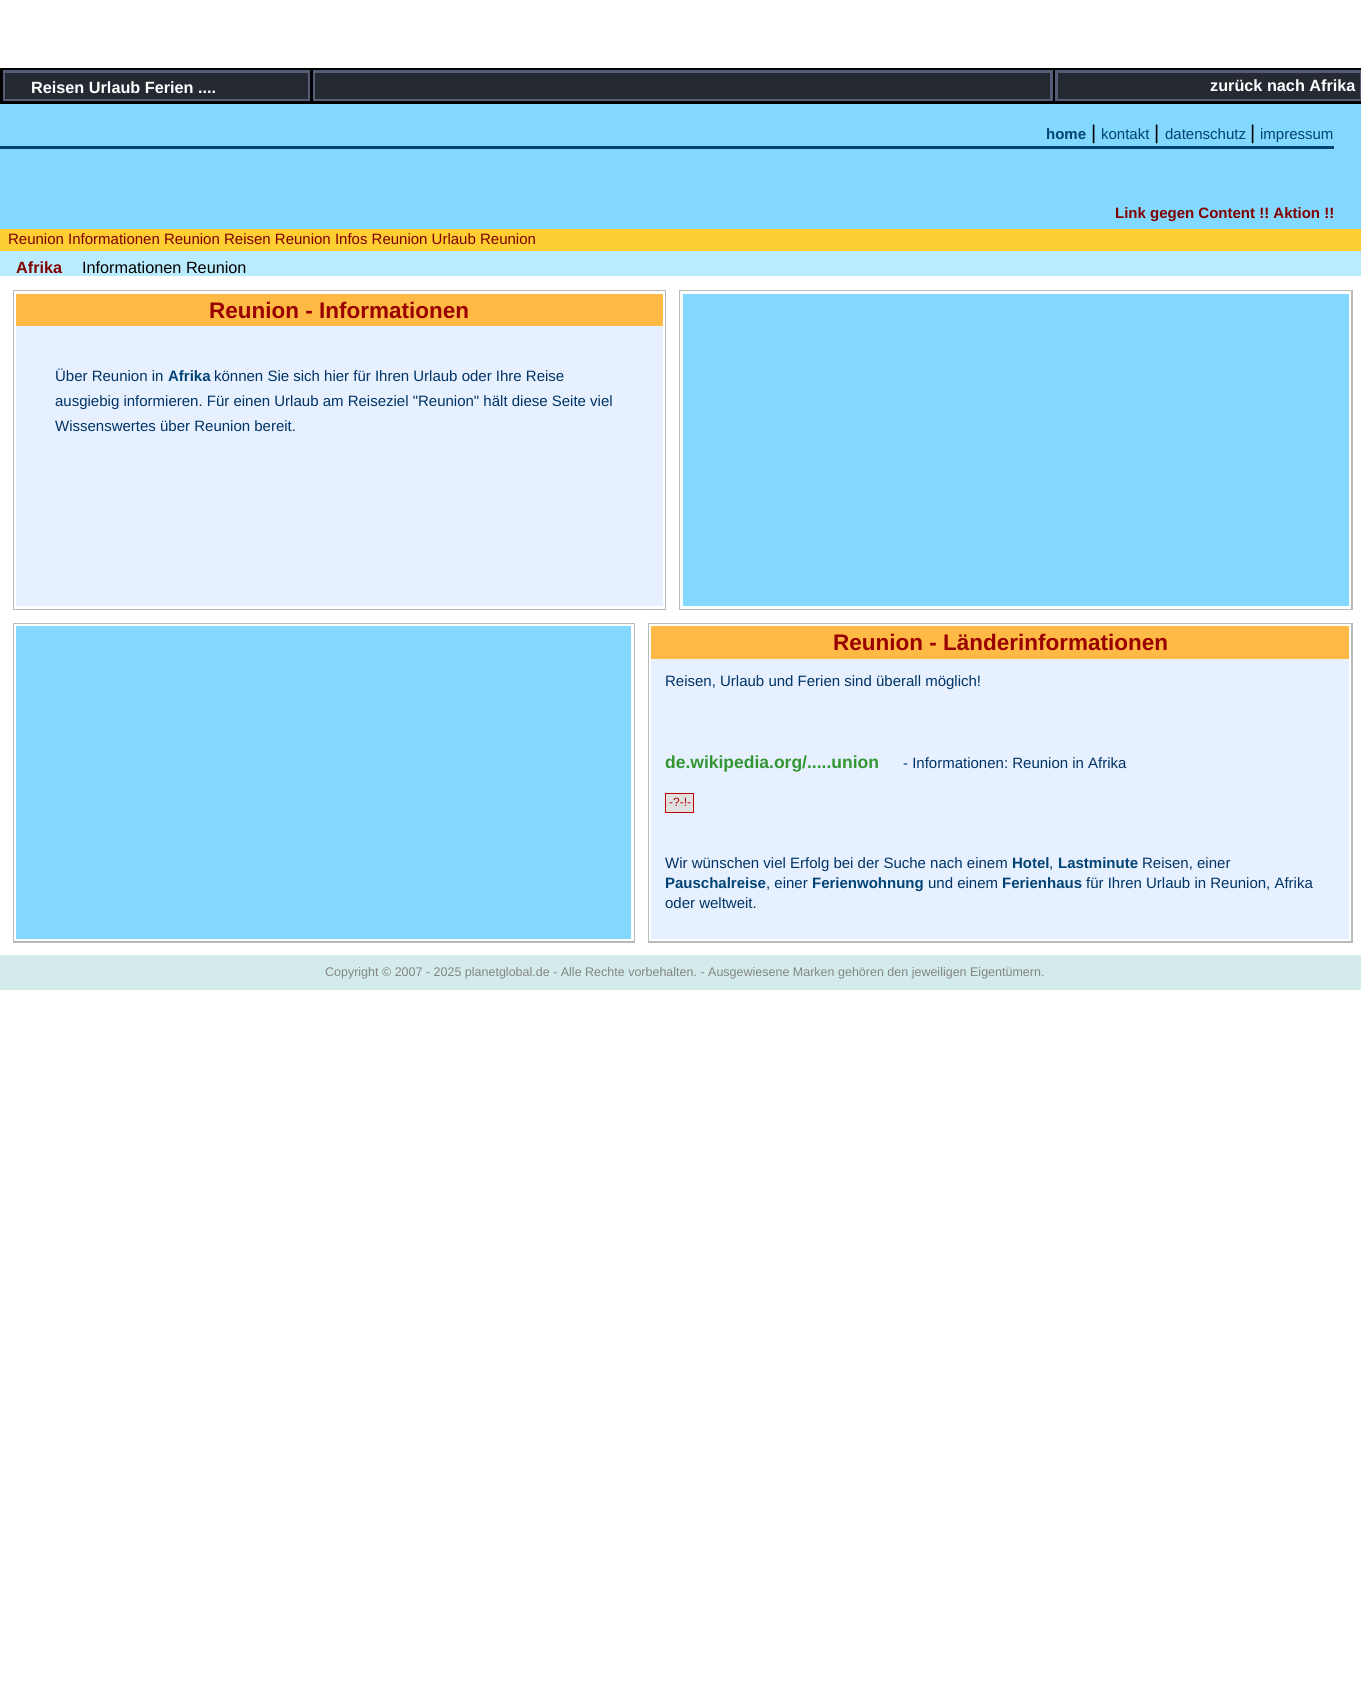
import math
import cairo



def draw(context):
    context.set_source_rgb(1, 1, 1)
    context.paint()
    context.set_source_rgb(0, 0, 0)
    context.rectangle(0, 68, 1361, 36)
    context.fill()
    context.set_source_rgb(85 / 255, 93 / 255, 118 / 255)
    context.rectangle(3, 70, 307, 31)
    context.fill()
    context.set_source_rgb(37 / 255, 41 / 255, 50 / 255)
    context.rectangle(5, 73, 303, 26)
    context.fill()
    context.set_source_rgb(85 / 255, 93 / 255, 118 / 255)
    context.rectangle(313, 70, 740, 31)
    context.fill()
    context.set_source_rgb(37 / 255, 41 / 255, 50 / 255)
    context.rectangle(315, 73, 735, 26)
    context.fill()
    context.set_source_rgb(85 / 255, 93 / 255, 118 / 255)
    context.rectangle(1055, 70, 306, 31)
    context.fill()
    context.set_source_rgb(37 / 255, 41 / 255, 50 / 255)
    context.rectangle(1058, 73, 302, 26)
    context.fill()
    context.set_source_rgb(130 / 255, 216 / 255, 254 / 255)
    context.rectangle(0, 104, 1361, 125)
    context.fill()
    context.set_source_rgb(0, 67 / 255, 116 / 255)
    context.rectangle(0, 146, 1334, 3)
    context.fill()
    context.set_source_rgb(254 / 255, 206 / 255, 51 / 255)
    context.rectangle(0, 229, 1361, 22)
    context.fill()
    context.set_source_rgb(187 / 255, 236 / 255, 253 / 255)
    context.rectangle(0, 251, 1361, 25)
    context.fill()
    context.set_source_rgb(185 / 255, 185 / 255, 185 / 255)
    context.rectangle(13, 290, 653, 320)
    context.fill()
    context.set_source_rgb(1, 1, 1)
    context.rectangle(14, 291, 651, 318)
    context.fill()
    context.set_source_rgb(230 / 255, 240 / 255, 1)
    context.rectangle(16, 326, 647, 280)
    context.fill()
    context.set_source_rgb(254 / 255, 186 / 255, 68 / 255)
    context.rectangle(16, 294, 647, 32)
    context.fill()
    context.set_source_rgb(185 / 255, 185 / 255, 185 / 255)
    context.rectangle(679, 290, 674, 320)
    context.fill()
    context.set_source_rgb(1, 1, 1)
    context.rectangle(680, 291, 671, 318)
    context.fill()
    context.set_source_rgb(130 / 255, 216 / 255, 254 / 255)
    context.rectangle(683, 294, 666, 312)
    context.fill()
    context.set_source_rgb(185 / 255, 185 / 255, 185 / 255)
    context.rectangle(13, 623, 622, 320)
    context.fill()
    context.set_source_rgb(1, 1, 1)
    context.rectangle(14, 624, 620, 317)
    context.fill()
    context.set_source_rgb(130 / 255, 216 / 255, 254 / 255)
    context.rectangle(16, 626, 615, 313)
    context.fill()
    context.set_source_rgb(185 / 255, 185 / 255, 185 / 255)
    context.rectangle(648, 623, 705, 320)
    context.fill()
    context.set_source_rgb(1, 1, 1)
    context.rectangle(649, 624, 702, 317)
    context.fill()
    context.set_source_rgb(230 / 255, 240 / 255, 1)
    context.rectangle(651, 659, 698, 280)
    context.fill()
    context.set_source_rgb(254 / 255, 186 / 255, 68 / 255)
    context.rectangle(651, 626, 698, 33)
    context.fill()
    context.set_source_rgb(224 / 255, 224 / 255, 224 / 255)
    context.rectangle(665.5, 793.5, 28, 19)
    context.fill_preserve()
    context.set_source_rgb(188 / 255, 0, 0)
    context.set_line_width(1)
    context.stroke()
    context.set_source_rgb(212 / 255, 235 / 255, 235 / 255)
    context.rectangle(0, 955, 1361, 35)
    context.fill()
    context.select_font_face("Liberation Sans", cairo.FontSlant.NORMAL, cairo.FontWeight.BOLD)
    context.set_font_size(16.25)
    context.set_source_rgb(1, 1, 1)
    context.move_to(31, 93)
    context.show_text("Reisen Urlaub Ferien ....")
    context.move_to(1210, 91)
    context.show_text("zurück nach Afrika")
    context.set_font_size(15)
    context.set_source_rgb(0, 67 / 255, 116 / 255)
    context.move_to(1046, 139)
    context.show_text("home")
    context.select_font_face("Liberation Sans")
    context.set_font_size(20)
    context.set_source_rgb(0, 0, 0)
    context.move_to(1091, 139)
    context.show_text("|")
    context.set_font_size(15)
    context.set_source_rgb(0, 67 / 255, 116 / 255)
    context.move_to(1101, 139)
    context.show_text("kontakt")
    context.set_font_size(20)
    context.set_source_rgb(0, 0, 0)
    context.move_to(1154, 139)
    context.show_text("|")
    context.set_font_size(15)
    context.set_source_rgb(0, 67 / 255, 116 / 255)
    context.move_to(1165, 139)
    context.show_text("datenschutz")
    context.set_font_size(20)
    context.set_source_rgb(0, 0, 0)
    context.move_to(1250, 139)
    context.show_text("|")
    context.set_font_size(15)
    context.set_source_rgb(0, 67 / 255, 116 / 255)
    context.move_to(1260, 139)
    context.show_text("impressum")
    context.select_font_face("Liberation Sans", cairo.FontSlant.NORMAL, cairo.FontWeight.BOLD)
    context.set_source_rgb(128 / 255, 0, 0)
    context.move_to(1115, 218)
    context.show_text("Link gegen Content !! Aktion !!")
    context.select_font_face("Liberation Sans")
    context.move_to(8, 244)
    context.show_text("Reunion Informationen Reunion Reisen Reunion Infos Reunion Urlaub Reunion")
    context.select_font_face("Liberation Sans", cairo.FontSlant.NORMAL, cairo.FontWeight.BOLD)
    context.set_font_size(16.25)
    context.move_to(16, 273)
    context.show_text("Afrika")
    context.select_font_face("Liberation Sans")
    context.set_source_rgb(0, 0, 0)
    context.move_to(82, 273)
    context.show_text("Informationen Reunion")
    context.select_font_face("Liberation Sans", cairo.FontSlant.NORMAL, cairo.FontWeight.BOLD)
    context.set_font_size(22.5)
    context.set_source_rgb(153 / 255, 0, 0)
    context.move_to(209, 318)
    context.show_text("Reunion - Informationen")
    context.select_font_face("Liberation Sans")
    context.set_font_size(15)
    context.set_source_rgb(0, 51 / 255, 102 / 255)
    context.move_to(55, 381)
    context.show_text("Über Reunion in")
    context.select_font_face("Liberation Sans", cairo.FontSlant.NORMAL, cairo.FontWeight.BOLD)
    context.set_source_rgb(0, 67 / 255, 116 / 255)
    context.move_to(168, 381)
    context.show_text("Afrika")
    context.select_font_face("Liberation Sans")
    context.set_source_rgb(0, 51 / 255, 102 / 255)
    context.move_to(214, 381)
    context.show_text("können Sie sich hier für Ihren Urlaub oder Ihre Reise")
    context.move_to(55, 406)
    context.show_text("ausgiebig informieren. Für einen Urlaub am Reiseziel \"Reunion\" hält diese Seite viel")
    context.move_to(55, 431)
    context.show_text("Wissenswertes über Reunion bereit.")
    context.select_font_face("Liberation Sans", cairo.FontSlant.NORMAL, cairo.FontWeight.BOLD)
    context.set_font_size(22.5)
    context.set_source_rgb(153 / 255, 0, 0)
    context.move_to(833, 650)
    context.show_text("Reunion - Länderinformationen")
    context.select_font_face("Liberation Sans")
    context.set_font_size(15)
    context.set_source_rgb(0, 51 / 255, 102 / 255)
    context.move_to(665, 686)
    context.show_text("Reisen, Urlaub und Ferien sind überall möglich!")
    context.select_font_face("Liberation Sans", cairo.FontSlant.NORMAL, cairo.FontWeight.BOLD)
    context.set_font_size(17.5)
    context.set_source_rgb(50 / 255, 150 / 255, 50 / 255)
    context.move_to(665, 768)
    context.show_text("de.wikipedia.org/.....union")
    context.select_font_face("Liberation Sans")
    context.set_font_size(15)
    context.set_source_rgb(0, 51 / 255, 102 / 255)
    context.move_to(903, 768)
    context.show_text("- Informationen: Reunion in Afrika")
    context.set_font_size(12)
    context.set_source_rgb(182 / 255, 0, 0)
    context.move_to(669, 806)
    context.show_text("-?-!-")
    context.set_font_size(15)
    context.set_source_rgb(0, 51 / 255, 102 / 255)
    context.move_to(665, 868)
    context.show_text("Wir wünschen viel Erfolg bei der Suche nach einem")
    context.select_font_face("Liberation Sans", cairo.FontSlant.NORMAL, cairo.FontWeight.BOLD)
    context.set_source_rgb(0, 67 / 255, 116 / 255)
    context.move_to(1012, 868)
    context.show_text("Hotel")
    context.select_font_face("Liberation Sans")
    context.set_source_rgb(0, 51 / 255, 102 / 255)
    context.move_to(1049, 868)
    context.show_text(",")
    context.select_font_face("Liberation Sans", cairo.FontSlant.NORMAL, cairo.FontWeight.BOLD)
    context.set_source_rgb(0, 67 / 255, 116 / 255)
    context.move_to(1058, 868)
    context.show_text("Lastminute")
    context.select_font_face("Liberation Sans")
    context.set_source_rgb(0, 51 / 255, 102 / 255)
    context.move_to(1142, 868)
    context.show_text("Reisen, einer")
    context.select_font_face("Liberation Sans", cairo.FontSlant.NORMAL, cairo.FontWeight.BOLD)
    context.set_source_rgb(0, 67 / 255, 116 / 255)
    context.move_to(665, 888)
    context.show_text("Pauschalreise")
    context.select_font_face("Liberation Sans")
    context.set_source_rgb(0, 51 / 255, 102 / 255)
    context.move_to(766, 888)
    context.show_text(", einer")
    context.select_font_face("Liberation Sans", cairo.FontSlant.NORMAL, cairo.FontWeight.BOLD)
    context.set_source_rgb(0, 67 / 255, 116 / 255)
    context.move_to(812, 888)
    context.show_text("Ferienwohnung")
    context.select_font_face("Liberation Sans")
    context.set_source_rgb(0, 51 / 255, 102 / 255)
    context.move_to(928, 888)
    context.show_text("und einem")
    context.select_font_face("Liberation Sans", cairo.FontSlant.NORMAL, cairo.FontWeight.BOLD)
    context.set_source_rgb(0, 67 / 255, 116 / 255)
    context.move_to(1002, 888)
    context.show_text("Ferienhaus")
    context.select_font_face("Liberation Sans")
    context.set_source_rgb(0, 51 / 255, 102 / 255)
    context.move_to(1086, 888)
    context.show_text("für Ihren Urlaub in Reunion, Afrika")
    context.move_to(665, 908)
    context.show_text("oder weltweit.")
    context.set_font_size(12.5)
    context.set_source_rgb(132 / 255, 132 / 255, 132 / 255)
    context.move_to(325, 976)
    context.show_text("Copyright © 2007 - 2025 planetglobal.de - Alle Rechte vorbehalten. - Ausgewiesene Marken gehören den jeweiligen Eigentümern.")


surface = cairo.ImageSurface(cairo.Format.RGB24, 1361, 1704)
context = cairo.Context(surface)
options = cairo.FontOptions()
options.set_hint_metrics(cairo.HintMetrics.OFF)
options.set_hint_style(cairo.HintStyle.NONE)
context.set_font_options(options)
context.set_miter_limit(4)
draw(context)
surface.write_to_png("out.png")
